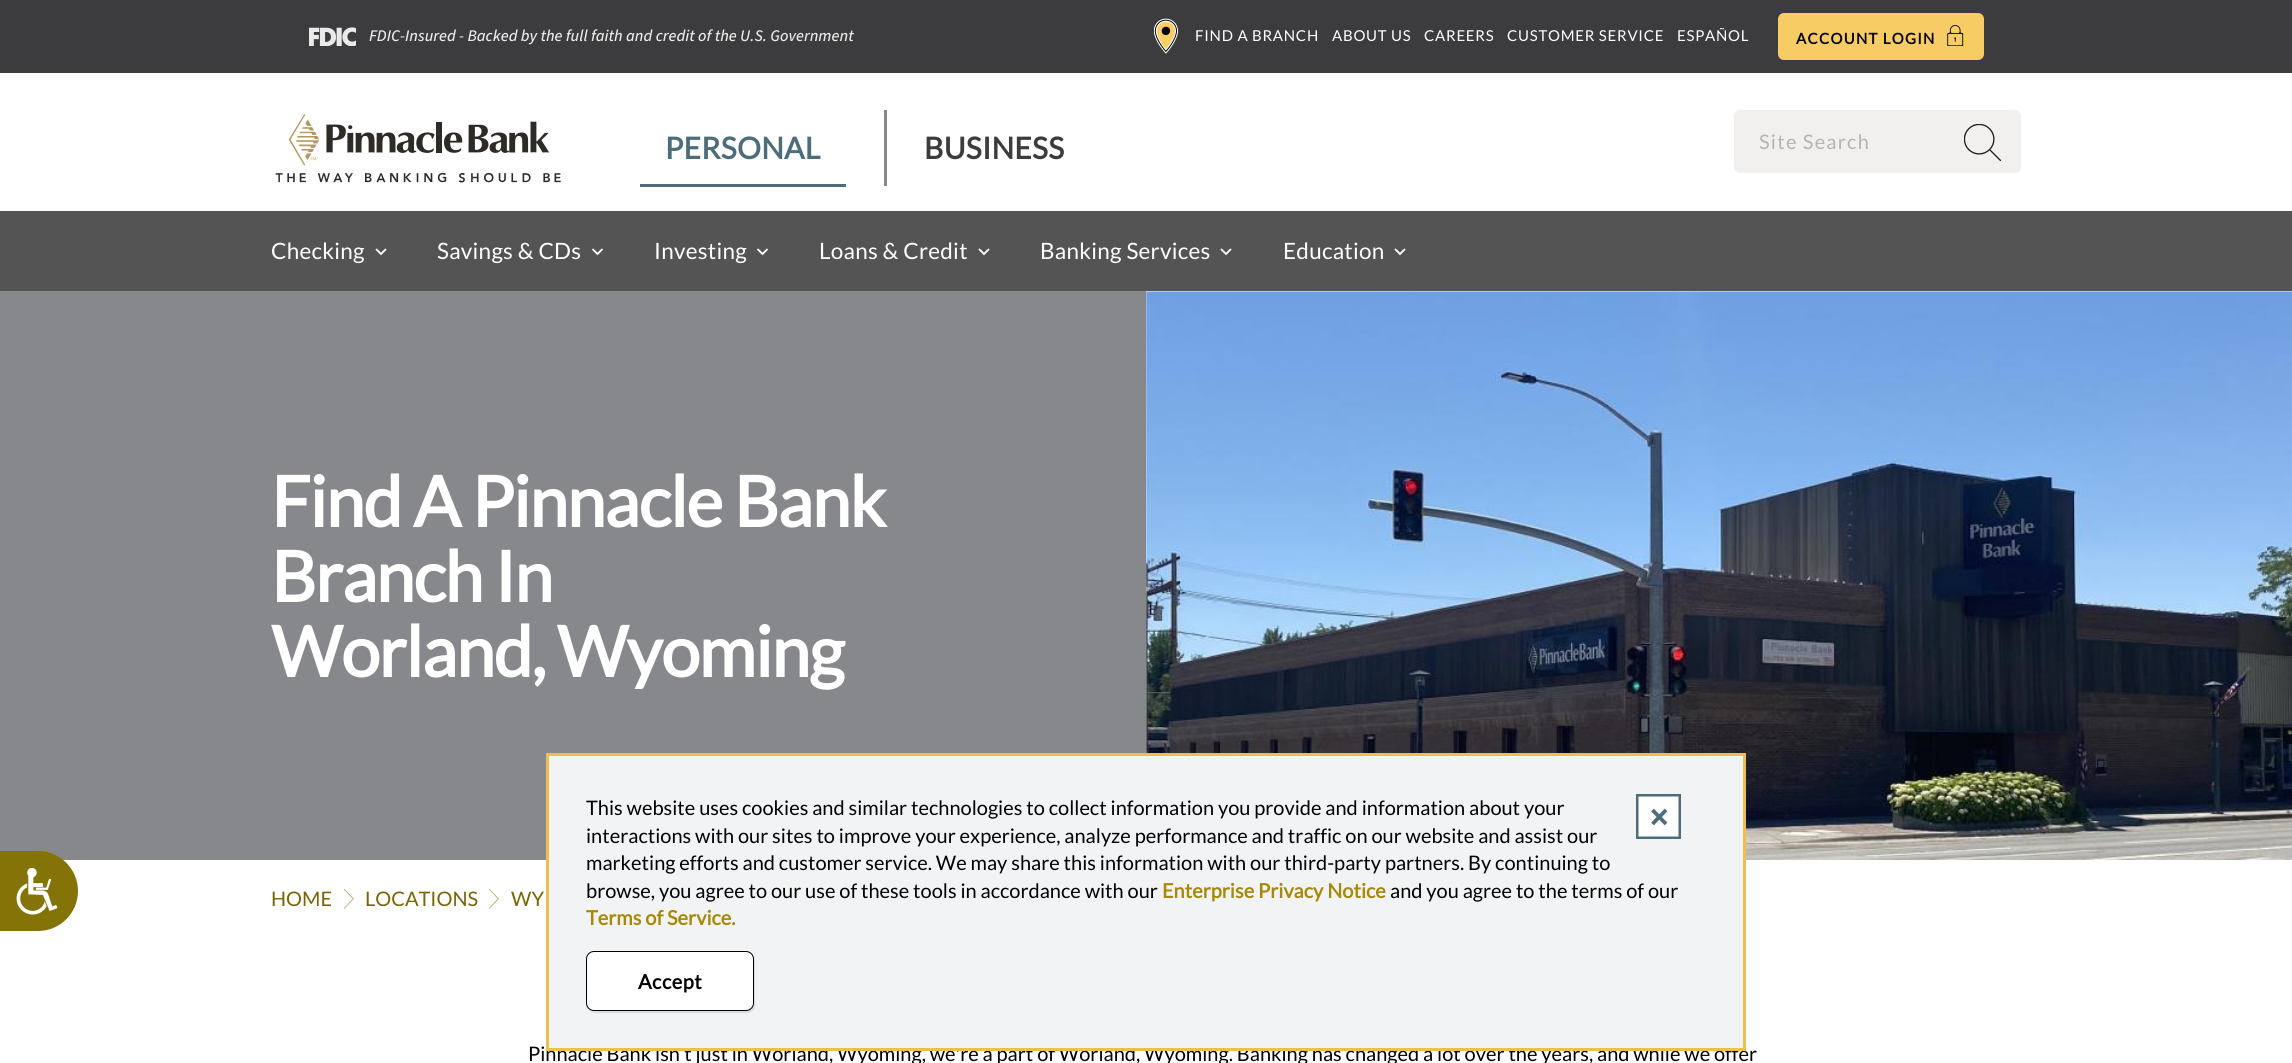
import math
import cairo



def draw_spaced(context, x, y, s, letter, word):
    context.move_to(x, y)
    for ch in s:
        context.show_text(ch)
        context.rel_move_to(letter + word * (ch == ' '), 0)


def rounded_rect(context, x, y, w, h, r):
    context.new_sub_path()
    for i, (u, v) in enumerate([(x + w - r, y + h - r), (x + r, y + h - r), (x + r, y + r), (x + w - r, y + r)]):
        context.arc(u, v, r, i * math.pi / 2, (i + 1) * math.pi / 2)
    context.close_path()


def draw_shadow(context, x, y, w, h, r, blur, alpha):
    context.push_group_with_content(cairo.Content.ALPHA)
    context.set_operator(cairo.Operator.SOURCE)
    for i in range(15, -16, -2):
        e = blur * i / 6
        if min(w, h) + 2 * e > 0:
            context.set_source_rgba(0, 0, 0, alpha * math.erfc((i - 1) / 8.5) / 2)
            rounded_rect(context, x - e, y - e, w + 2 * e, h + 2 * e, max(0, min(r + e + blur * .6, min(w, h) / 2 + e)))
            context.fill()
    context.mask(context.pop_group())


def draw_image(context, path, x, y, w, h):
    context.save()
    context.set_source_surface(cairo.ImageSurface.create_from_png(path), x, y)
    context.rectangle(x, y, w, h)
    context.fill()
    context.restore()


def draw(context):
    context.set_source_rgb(1, 1, 1)
    context.paint()
    context.set_source_rgb(134 / 255, 136 / 255, 139 / 255)
    context.rectangle(0, 291, 1146, 569)
    context.fill()
    context.set_source_rgb(132 / 255, 115 / 255, 6 / 255)
    context.new_path()
    context.move_to(0, 851)
    context.line_to(38, 851)
    context.curve_to(60, 851, 78, 869, 78, 891)
    context.curve_to(78, 913, 60, 931, 38, 931)
    context.line_to(0, 931)
    context.close_path()
    context.fill()
    draw_image(context, "images/1.png", 16, 867, 42, 48)
    context.set_source_rgb(60 / 255, 60 / 255, 62 / 255)
    context.rectangle(0, 0, 2292, 73)
    context.fill()
    draw_image(context, "images/2.png", 309, 27, 47, 19)
    draw_image(context, "images/3.png", 1154, 18, 25, 36)
    context.set_source_rgb(247 / 255, 204 / 255, 100 / 255)
    rounded_rect(context, 1778, 13, 206, 47, 6)
    context.fill()
    draw_image(context, "images/4.png", 1947, 25, 17, 21)
    draw_image(context, "images/5.png", 275, 114, 286, 69)
    context.set_source_rgb(134 / 255, 136 / 255, 139 / 255)
    context.rectangle(884, 110, 3, 76)
    context.fill()
    context.set_source_rgb(77 / 255, 109 / 255, 122 / 255)
    context.rectangle(640, 184, 206, 3)
    context.fill()
    context.set_source_rgb(241 / 255, 240 / 255, 239 / 255)
    rounded_rect(context, 1734, 110, 287, 63, 6)
    context.fill()
    draw_image(context, "images/6.png", 1964, 124, 37, 37)
    context.set_source_rgb(84 / 255, 84 / 255, 84 / 255)
    context.rectangle(0, 211, 2292, 80)
    context.fill()
    context.new_path()
    context.move_to(376, 249)
    context.line_to(381, 254)
    context.line_to(386, 249)
    context.set_source_rgb(1, 1, 1)
    context.set_line_width(1.8)
    context.stroke()
    context.new_path()
    context.move_to(592.5, 249)
    context.line_to(597.5, 254)
    context.line_to(602.5, 249)
    context.stroke()
    context.new_path()
    context.move_to(757.5, 249)
    context.line_to(762.5, 254)
    context.line_to(767.5, 249)
    context.stroke()
    context.new_path()
    context.move_to(979, 249)
    context.line_to(984, 254)
    context.line_to(989, 249)
    context.stroke()
    context.new_path()
    context.move_to(1221, 249)
    context.line_to(1226, 254)
    context.line_to(1231, 249)
    context.stroke()
    context.new_path()
    context.move_to(1395, 249)
    context.line_to(1400, 254)
    context.line_to(1405, 249)
    context.stroke()
    draw_image(context, "images/7.png", 1146, 291, 1146, 569)
    draw_image(context, "images/8.png", 344, 889, 10, 20)
    draw_image(context, "images/8.png", 489, 889, 10, 20)
    context.select_font_face("Source Sans 3 Medium", cairo.FontSlant.ITALIC)
    context.set_font_size(16.25)
    context.set_source_rgb(234 / 255, 234 / 255, 234 / 255)
    draw_spaced(context, 369, 41, "FDIC-Insured - Backed by the full faith and credit of the U.S. Government", 0.05, 0)
    context.select_font_face("Lato")
    context.set_font_size(15)
    context.set_source_rgb(1, 1, 1)
    draw_spaced(context, 1195, 41, "FIND A BRANCH", 0.75, 0)
    draw_spaced(context, 1332, 41, "ABOUT US", 0.75, 0)
    draw_spaced(context, 1424, 41, "CAREERS", 0.75, 0)
    draw_spaced(context, 1507, 41, "CUSTOMER SERVICE", 0.75, 0)
    draw_spaced(context, 1677, 41, "ESPAÑOL", 0.75, 0)
    context.select_font_face("Lato", cairo.FontSlant.NORMAL, cairo.FontWeight.BOLD)
    context.set_source_rgb(0, 0, 0)
    draw_spaced(context, 1796, 44, "ACCOUNT LOGIN", 1.25, 0)
    context.set_font_size(30)
    context.set_source_rgb(77 / 255, 109 / 255, 122 / 255)
    draw_spaced(context, 665, 159, "PERSONAL", 0.25, 0)
    context.set_source_rgb(60 / 255, 60 / 255, 62 / 255)
    draw_spaced(context, 924, 159, "BUSINESS", 0.25, 0)
    context.select_font_face("Lato")
    context.set_font_size(20)
    context.set_source_rgb(183 / 255, 180 / 255, 175 / 255)
    draw_spaced(context, 1759, 149, "Site Search", 1.25, 0)
    context.set_font_size(22.5)
    context.set_source_rgb(1, 1, 1)
    draw_spaced(context, 271, 259, "Checking", 0.25, 0)
    draw_spaced(context, 437, 259, "Savings & CDs", 0.25, 0)
    draw_spaced(context, 654, 259, "Investing", 0.25, 0)
    draw_spaced(context, 819, 259, "Loans & Credit", 0.25, 0)
    draw_spaced(context, 1040, 259, "Banking Services", 0.25, 0)
    draw_spaced(context, 1283, 259, "Education", 0.25, 0)
    context.select_font_face("Lato", cairo.FontSlant.NORMAL, cairo.FontWeight.BOLD)
    context.set_font_size(70)
    draw_spaced(context, 271, 527, "Find A Pinnacle Bank", -1.4, 0)
    draw_spaced(context, 271, 602, "Branch In", -1.4, 0)
    draw_spaced(context, 271, 677, "Worland, Wyoming", -1.4, 0)
    context.select_font_face("Lato")
    context.set_font_size(20)
    context.set_source_rgb(124 / 255, 100 / 255, 3 / 255)
    context.move_to(271, 906)
    context.show_text("HOME")
    context.move_to(365, 906)
    context.show_text("LOCATIONS")
    context.move_to(511, 906)
    context.show_text("WY")
    context.set_source_rgb(0, 0, 0)
    context.move_to(528, 1061)
    context.show_text("Pinnacle Bank isn’t just in Worland, Wyoming, we're a part of Worland, Wyoming. Banking has changed a lot over the years, and while we offer")
    context.set_source_rgb(241 / 255, 243 / 255, 244 / 255)
    context.rectangle(547.5, 754.5, 1197, 295)
    context.fill_preserve()
    context.set_source_rgb(239 / 255, 189 / 255, 80 / 255)
    context.set_line_width(3)
    context.stroke()
    context.set_source_rgb(1, 1, 1)
    context.rectangle(1637.25, 795.25, 42.5, 42.5)
    context.fill_preserve()
    context.set_source_rgb(77 / 255, 109 / 255, 122 / 255)
    context.set_line_width(2.5)
    context.stroke()
    context.new_path()
    context.move_to(1652.5, 824)
    context.line_to(1666, 810)
    context.move_to(1666, 824)
    context.line_to(1652.5, 810)
    context.set_line_width(3.8)
    context.set_line_join(cairo.LineJoin.ROUND)
    context.stroke()
    context.set_source_rgb(0, 0, 0)
    context.move_to(586, 815)
    context.show_text("This website uses cookies and similar technologies to collect information you provide and information about your")
    context.move_to(586, 843)
    context.show_text("interactions with our sites to improve your experience, analyze performance and traffic on our website and assist our")
    context.move_to(586, 870)
    context.show_text("marketing efforts and customer service. We may share this information with our third-party partners. By continuing to")
    context.move_to(586, 898)
    context.show_text("browse, you agree to our use of these tools in accordance with our")
    context.select_font_face("Lato", cairo.FontSlant.NORMAL, cairo.FontWeight.BOLD)
    context.set_source_rgb(168 / 255, 136 / 255, 4 / 255)
    context.move_to(1162, 898)
    context.show_text("Enterprise Privacy Notice")
    context.select_font_face("Lato")
    context.set_source_rgb(0, 0, 0)
    context.move_to(1390, 898)
    context.show_text("and you agree to the terms of our")
    context.select_font_face("Lato", cairo.FontSlant.NORMAL, cairo.FontWeight.BOLD)
    context.set_source_rgb(168 / 255, 136 / 255, 4 / 255)
    context.move_to(586, 925)
    context.show_text("Terms of Service.")
    context.set_source_rgb(0, 0, 0)
    draw_shadow(context, 588, 953, 167, 60, 8, 0.5, 0.1)
    context.set_source_rgb(1, 1, 1)
    rounded_rect(context, 586.5, 951.5, 167, 59, 7.5)
    context.fill_preserve()
    context.set_source_rgb(0, 0, 0)
    context.set_line_width(1)
    context.set_line_join(cairo.LineJoin.MITER)
    context.stroke()
    draw_spaced(context, 638, 989, "Accept", 0.5, 0)


surface = cairo.ImageSurface(cairo.Format.RGB24, 2292, 1063)
context = cairo.Context(surface)
options = cairo.FontOptions()
options.set_hint_metrics(cairo.HintMetrics.OFF)
options.set_hint_style(cairo.HintStyle.NONE)
context.set_font_options(options)
context.set_miter_limit(4)
draw(context)
surface.write_to_png("out.png")
